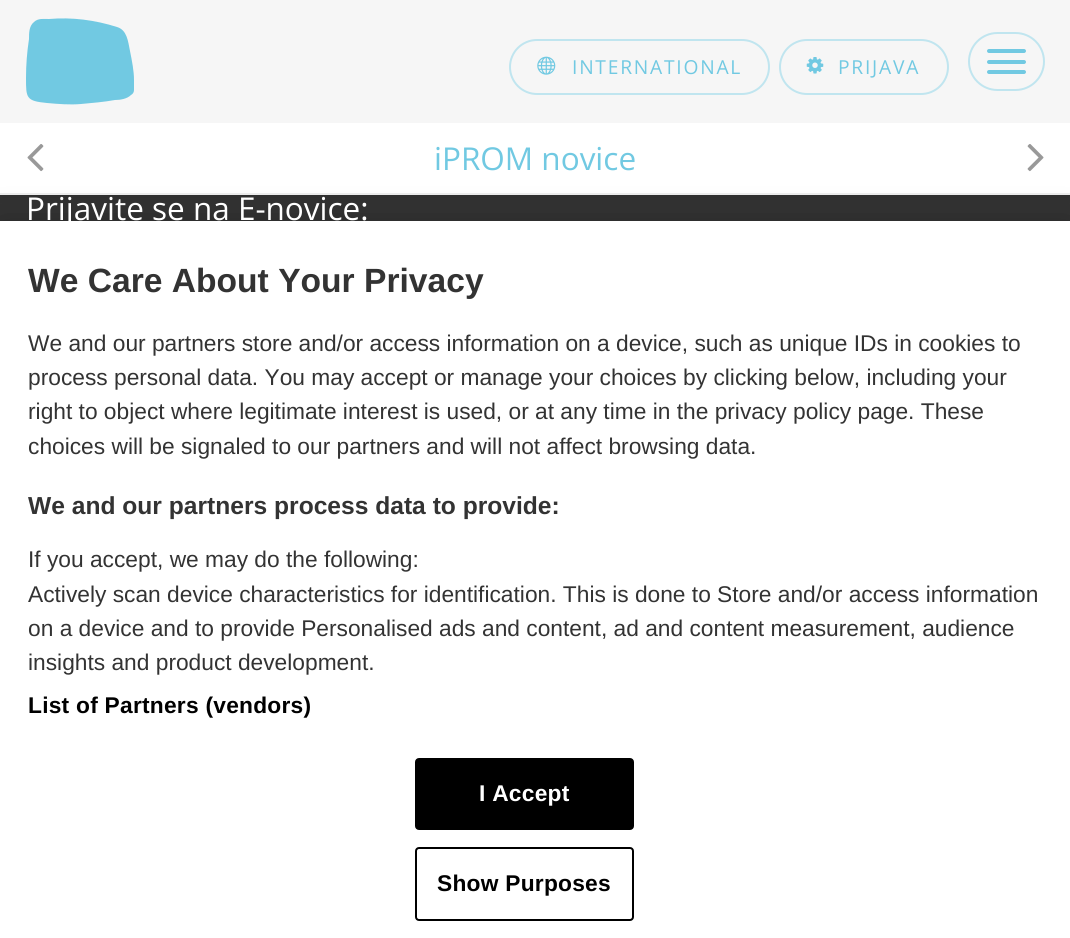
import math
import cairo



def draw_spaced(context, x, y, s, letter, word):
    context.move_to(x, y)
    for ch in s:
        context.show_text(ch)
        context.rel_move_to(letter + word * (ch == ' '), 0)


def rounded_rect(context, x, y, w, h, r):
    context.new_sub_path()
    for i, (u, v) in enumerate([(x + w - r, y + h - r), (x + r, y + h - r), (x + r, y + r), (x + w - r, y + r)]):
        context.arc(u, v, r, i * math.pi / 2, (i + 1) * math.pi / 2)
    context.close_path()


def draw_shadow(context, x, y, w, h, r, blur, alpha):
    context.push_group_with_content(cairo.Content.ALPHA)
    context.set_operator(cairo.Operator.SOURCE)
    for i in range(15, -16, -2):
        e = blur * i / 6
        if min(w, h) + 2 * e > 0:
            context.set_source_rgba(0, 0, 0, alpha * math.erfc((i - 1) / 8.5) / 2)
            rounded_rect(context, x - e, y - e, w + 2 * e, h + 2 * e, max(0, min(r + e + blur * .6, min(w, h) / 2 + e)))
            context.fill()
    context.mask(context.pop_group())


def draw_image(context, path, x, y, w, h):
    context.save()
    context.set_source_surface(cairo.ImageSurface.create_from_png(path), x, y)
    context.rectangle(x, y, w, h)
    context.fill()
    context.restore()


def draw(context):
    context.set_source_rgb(51 / 255, 51 / 255, 51 / 255)
    context.paint()
    context.set_source_rgb(0, 0, 0)
    draw_shadow(context, 0, 126, 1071, 72, 0, 4.5, 0.1)
    context.set_source_rgb(246 / 255, 246 / 255, 246 / 255)
    context.rectangle(0, 0, 1070, 123)
    context.fill()
    context.set_source_rgb(113 / 255, 201 / 255, 226 / 255)
    context.set_fill_rule(cairo.FillRule.EVEN_ODD)
    context.new_path()
    context.move_to(117, 27)
    context.curve_to(127, 30, 128, 41, 130, 51)
    context.curve_to(132, 61, 134, 71, 134, 80)
    context.line_to(134, 90)
    context.curve_to(134, 92, 133, 94, 131, 95)
    context.curve_to(127, 99, 120, 100, 115, 100)
    context.curve_to(104, 102, 92, 103, 81, 104)
    context.curve_to(70, 105, 58, 104, 47, 103)
    context.curve_to(26, 101, 26, 98, 26, 78)
    context.curve_to(26, 65, 27, 52, 29, 39)
    context.curve_to(29, 33, 29, 26, 34, 22)
    context.curve_to(38, 18, 44, 19, 49, 19)
    context.curve_to(72, 17, 95, 20, 117, 27)
    context.close_path()
    context.fill()
    rounded_rect(context, 510, 40, 259, 54, 27)
    context.set_source_rgb(192 / 255, 229 / 255, 239 / 255)
    context.stroke()
    draw_image(context, "images/1.png", 537, 56, 19, 19)
    rounded_rect(context, 780, 40, 168, 54, 27)
    context.stroke()
    draw_image(context, "images/2.png", 806, 57, 18, 17)
    rounded_rect(context, 969, 33, 75, 57, 28.5)
    context.stroke()
    context.set_source_rgb(113 / 255, 201 / 255, 226 / 255)
    rounded_rect(context, 987, 49, 39, 4, 2)
    context.fill()
    rounded_rect(context, 987, 60, 39, 4, 2)
    context.fill()
    rounded_rect(context, 987, 70, 39, 4, 2)
    context.fill()
    context.set_source_rgb(1, 1, 1)
    context.rectangle(0, 123, 1070, 70)
    context.fill()
    context.set_source_rgb(238 / 255, 238 / 255, 238 / 255)
    context.rectangle(0, 193, 1070, 2)
    context.fill()
    draw_image(context, "images/3.png", 27, 144, 17, 28)
    draw_image(context, "images/4.png", 1027, 144, 17, 28)
    context.set_source_rgb(0, 0, 0)
    draw_shadow(context, 0, 221, 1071, 717, 0, 16, 0.2)
    context.set_source_rgb(1, 1, 1)
    context.rectangle(0, 221, 1070, 717)
    context.fill()
    context.set_source_rgb(0, 0, 0)
    rounded_rect(context, 416, 759, 217, 70, 3)
    context.fill_preserve()
    context.stroke()
    rounded_rect(context, 416, 848, 217, 72, 3)
    context.stroke()
    context.select_font_face("Open Sans")
    context.set_font_size(19.25)
    context.set_source_rgb(113 / 255, 201 / 255, 226 / 255)
    draw_spaced(context, 572, 74, "INTERNATIONAL", 1.75, 0)
    draw_spaced(context, 838, 74, "PRIJAVA", 1.75, 0)
    context.set_font_size(31.5)
    context.move_to(434, 170)
    context.show_text("iPROM novice")
    context.set_source_rgb(1, 1, 1)
    context.move_to(26, 220)
    context.show_text("Prijavite se na E-novice:")
    context.select_font_face("Liberation Sans", cairo.FontSlant.NORMAL, cairo.FontWeight.BOLD)
    context.set_font_size(33.6)
    context.set_source_rgb(51 / 255, 51 / 255, 51 / 255)
    context.move_to(28, 292)
    context.show_text("We Care About Your Privacy")
    context.select_font_face("Liberation Sans")
    context.set_font_size(22.75)
    context.move_to(28, 351)
    context.show_text("We and our partners store and/or access information on a device, such as unique IDs in cookies to")
    context.move_to(28, 385)
    context.show_text("process personal data. You may accept or manage your choices by clicking below, including your")
    context.move_to(28, 419)
    context.show_text("right to object where legitimate interest is used, or at any time in the privacy policy page. These")
    context.move_to(28, 454)
    context.show_text("choices will be signaled to our partners and will not affect browsing data.")
    context.select_font_face("Liberation Sans", cairo.FontSlant.NORMAL, cairo.FontWeight.BOLD)
    context.set_font_size(24.6)
    context.move_to(28, 514)
    context.show_text("We and our partners process data to provide:")
    context.select_font_face("Liberation Sans")
    context.set_font_size(22.75)
    context.move_to(28, 567)
    context.show_text("If you accept, we may do the following:")
    context.move_to(28, 602)
    context.show_text("Actively scan device characteristics for identification. This is done to Store and/or access information")
    context.move_to(28, 636)
    context.show_text("on a device and to provide Personalised ads and content, ad and content measurement, audience")
    context.move_to(28, 670)
    context.show_text("insights and product development.")
    context.select_font_face("Liberation Sans", cairo.FontSlant.NORMAL, cairo.FontWeight.BOLD)
    context.set_source_rgb(0, 0, 0)
    draw_spaced(context, 28, 713, "List of Partners (vendors)", 0.25, 0)
    context.set_source_rgb(1, 1, 1)
    draw_spaced(context, 479, 801, "I Accept", 0.25, 0)
    context.set_source_rgb(0, 0, 0)
    draw_spaced(context, 437, 891, "Show Purposes", 0.25, 0)


surface = cairo.ImageSurface(cairo.Format.RGB24, 1070, 938)
context = cairo.Context(surface)
options = cairo.FontOptions()
options.set_hint_metrics(cairo.HintMetrics.OFF)
options.set_hint_style(cairo.HintStyle.NONE)
context.set_font_options(options)
context.set_miter_limit(4)
draw(context)
surface.write_to_png("out.png")
